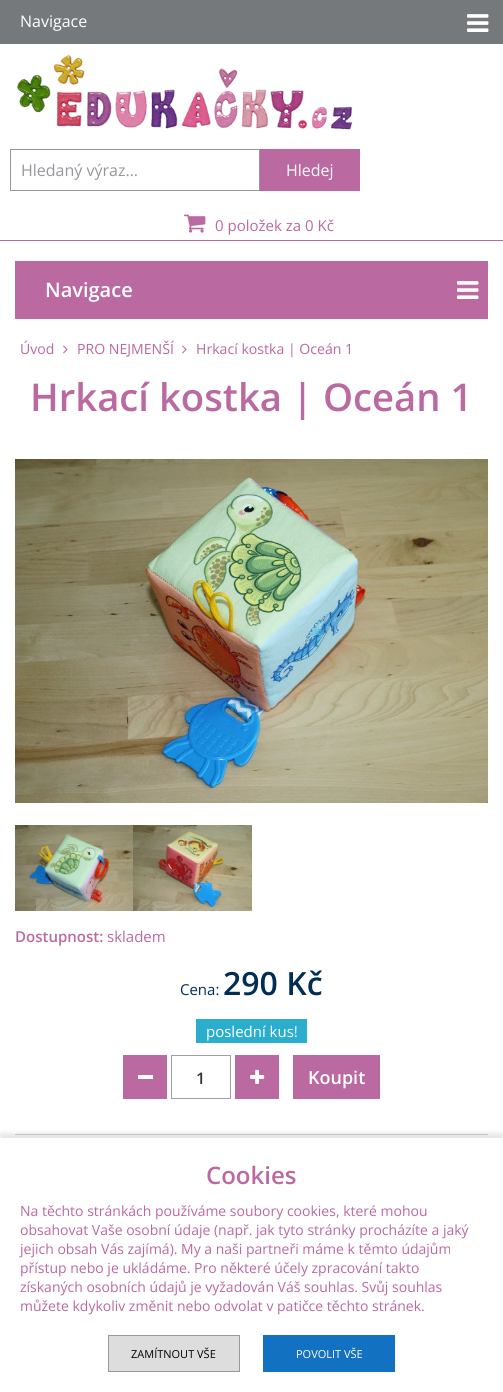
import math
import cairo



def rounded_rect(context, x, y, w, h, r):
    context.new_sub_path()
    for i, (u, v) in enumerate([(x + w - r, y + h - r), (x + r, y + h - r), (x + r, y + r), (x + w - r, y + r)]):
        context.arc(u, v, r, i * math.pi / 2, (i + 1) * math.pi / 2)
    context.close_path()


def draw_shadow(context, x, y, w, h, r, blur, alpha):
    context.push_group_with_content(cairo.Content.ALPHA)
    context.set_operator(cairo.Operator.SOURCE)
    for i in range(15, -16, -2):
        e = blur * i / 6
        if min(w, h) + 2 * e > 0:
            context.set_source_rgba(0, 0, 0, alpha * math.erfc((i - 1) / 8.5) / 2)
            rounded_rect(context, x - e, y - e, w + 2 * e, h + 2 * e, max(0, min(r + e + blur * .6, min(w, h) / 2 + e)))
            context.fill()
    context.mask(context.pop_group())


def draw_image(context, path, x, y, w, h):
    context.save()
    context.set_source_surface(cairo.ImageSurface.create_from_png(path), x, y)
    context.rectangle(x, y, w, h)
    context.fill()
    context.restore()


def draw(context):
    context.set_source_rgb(1, 1, 1)
    context.paint()
    context.set_source_rgb(117 / 255, 121 / 255, 124 / 255)
    context.rectangle(0, 0, 503, 44)
    context.fill()
    draw_image(context, "images/1.png", 467, 14, 22, 18)
    context.set_source_rgb(186 / 255, 105 / 255, 161 / 255)
    context.rectangle(0, 240, 503, 1)
    context.fill()
    draw_image(context, "images/2.png", 17, 54, 336, 76)
    context.rectangle(10.5, 149.5, 249, 41)
    context.set_source_rgb(151 / 255, 150 / 255, 156 / 255)
    context.set_line_width(1)
    context.stroke()
    context.set_source_rgb(186 / 255, 105 / 255, 161 / 255)
    context.rectangle(260, 149, 100, 42)
    context.fill()
    draw_image(context, "images/3.png", 184, 214, 22, 19)
    context.rectangle(15, 261, 473, 58)
    context.fill()
    draw_image(context, "images/4.png", 457, 281, 22, 18)
    draw_image(context, "images/5.png", 63, 345, 5, 9)
    draw_image(context, "images/5.png", 182, 345, 5, 9)
    draw_image(context, "images/6.png", 15, 459, 473, 344)
    draw_image(context, "images/7.png", 15, 825, 118, 86)
    draw_image(context, "images/8.png", 133, 825, 119, 86)
    context.set_source_rgb(43 / 255, 173 / 255, 206 / 255)
    context.rectangle(196, 1019, 111, 24)
    context.fill()
    context.set_source_rgb(186 / 255, 105 / 255, 161 / 255)
    context.rectangle(123, 1055, 44, 44)
    context.fill()
    context.set_source_rgb(1, 1, 1)
    context.rectangle(138, 1075, 15, 4)
    context.fill()
    context.rectangle(171.5, 1055.5, 59, 43)
    context.set_source_rgb(162 / 255, 155 / 255, 171 / 255)
    context.stroke()
    context.set_source_rgb(186 / 255, 105 / 255, 161 / 255)
    context.rectangle(235, 1055, 44, 44)
    context.fill()
    draw_image(context, "images/9.png", 250, 1069, 15, 15)
    context.rectangle(293, 1055, 87, 44)
    context.fill()
    context.set_source_rgb(210 / 255, 210 / 255, 210 / 255)
    context.rectangle(15, 1134, 473, 1)
    context.fill()
    context.set_source_rgb(0, 0, 0)
    draw_shadow(context, 0, 1133, 503, 254, 0, 2.5, 0.1)
    context.set_source_rgb(1, 1, 1)
    context.rectangle(0, 1138, 503, 252)
    context.fill()
    context.set_source_rgb(221 / 255, 221 / 255, 221 / 255)
    context.rectangle(108.5, 1335.5, 131, 36)
    context.fill_preserve()
    context.set_source_rgb(153 / 255, 153 / 255, 153 / 255)
    context.stroke()
    context.set_source_rgb(19 / 255, 113 / 255, 194 / 255)
    context.rectangle(263, 1335, 132, 37)
    context.fill()
    context.select_font_face("Open Sans")
    context.set_font_size(16)
    context.set_source_rgb(1, 1, 1)
    context.move_to(20, 27)
    context.show_text("Navigace")
    context.set_source_rgb(151 / 255, 150 / 255, 156 / 255)
    context.move_to(21, 176)
    context.show_text("Hledaný výraz...")
    context.set_source_rgb(1, 1, 1)
    context.move_to(286, 176)
    context.show_text("Hledej")
    context.set_font_size(15)
    context.set_source_rgb(186 / 255, 105 / 255, 161 / 255)
    context.move_to(215, 231)
    context.show_text("0 položek za 0 Kč")
    context.select_font_face("Open Sans SemiBold")
    context.set_font_size(20)
    context.set_source_rgb(1, 1, 1)
    context.move_to(45, 297)
    context.show_text("Navigace")
    context.select_font_face("Open Sans")
    context.set_font_size(14.1)
    context.set_source_rgb(186 / 255, 105 / 255, 161 / 255)
    context.move_to(20, 354)
    context.show_text("Úvod")
    context.move_to(77, 354)
    context.show_text("PRO NEJMENŠÍ")
    context.move_to(196, 354)
    context.show_text("Hrkací kostka | Oceán 1")
    context.select_font_face("Open Sans SemiBold")
    context.set_font_size(38.25)
    context.move_to(30, 411)
    context.show_text("Hrkací kostka | Oceán 1")
    context.set_font_size(15)
    context.move_to(15, 942)
    context.show_text("Dostupnost:")
    context.select_font_face("Open Sans")
    context.move_to(107, 942)
    context.show_text("skladem")
    context.set_source_rgb(0, 45 / 255, 84 / 255)
    context.move_to(180, 995)
    context.show_text("Cena:")
    context.select_font_face("Open Sans SemiBold")
    context.set_font_size(32)
    context.move_to(223, 995)
    context.show_text("290 Kč")
    context.select_font_face("Open Sans")
    context.set_font_size(15)
    context.set_source_rgb(1, 1, 1)
    context.move_to(206, 1037)
    context.show_text("poslední kus!")
    context.select_font_face("Open Sans SemiBold")
    context.set_font_size(16)
    context.set_source_rgb(51 / 255, 51 / 255, 51 / 255)
    context.move_to(196, 1084)
    context.show_text("1")
    context.set_font_size(18)
    context.set_source_rgb(1, 1, 1)
    context.move_to(308, 1084)
    context.show_text("Koupit")
    context.set_font_size(24)
    context.set_source_rgb(186 / 255, 105 / 255, 161 / 255)
    context.move_to(206, 1184)
    context.show_text("Cookies")
    context.select_font_face("Open Sans")
    context.set_font_size(14)
    context.move_to(20, 1216)
    context.show_text("Na těchto stránkách používáme soubory cookies, které mohou")
    context.move_to(20, 1235)
    context.show_text("obsahovat Vaše osobní údaje (např. jak tyto stránky procházíte a jaký")
    context.move_to(20, 1254)
    context.show_text("jejich obsah Vás zajímá). My a naši partneři máme k těmto údajům")
    context.move_to(20, 1273)
    context.show_text("přístup nebo je ukládáme. Pro některé účely zpracování takto")
    context.move_to(20, 1292)
    context.show_text("získaných osobních údajů je vyžadován Váš souhlas. Svůj souhlas")
    context.move_to(20, 1311)
    context.show_text("můžete kdykoliv změnit nebo odvolat v patičce těchto stránek.")
    context.set_font_size(11)
    context.set_source_rgb(0, 0, 0)
    context.move_to(131, 1358)
    context.show_text("ZAMÍTNOUT VŠE")
    context.set_source_rgb(1, 1, 1)
    context.move_to(296, 1358)
    context.show_text("POVOLIT VŠE")


surface = cairo.ImageSurface(cairo.Format.RGB24, 503, 1392)
context = cairo.Context(surface)
options = cairo.FontOptions()
options.set_hint_metrics(cairo.HintMetrics.OFF)
options.set_hint_style(cairo.HintStyle.NONE)
context.set_font_options(options)
context.set_miter_limit(4)
draw(context)
surface.write_to_png("out.png")
